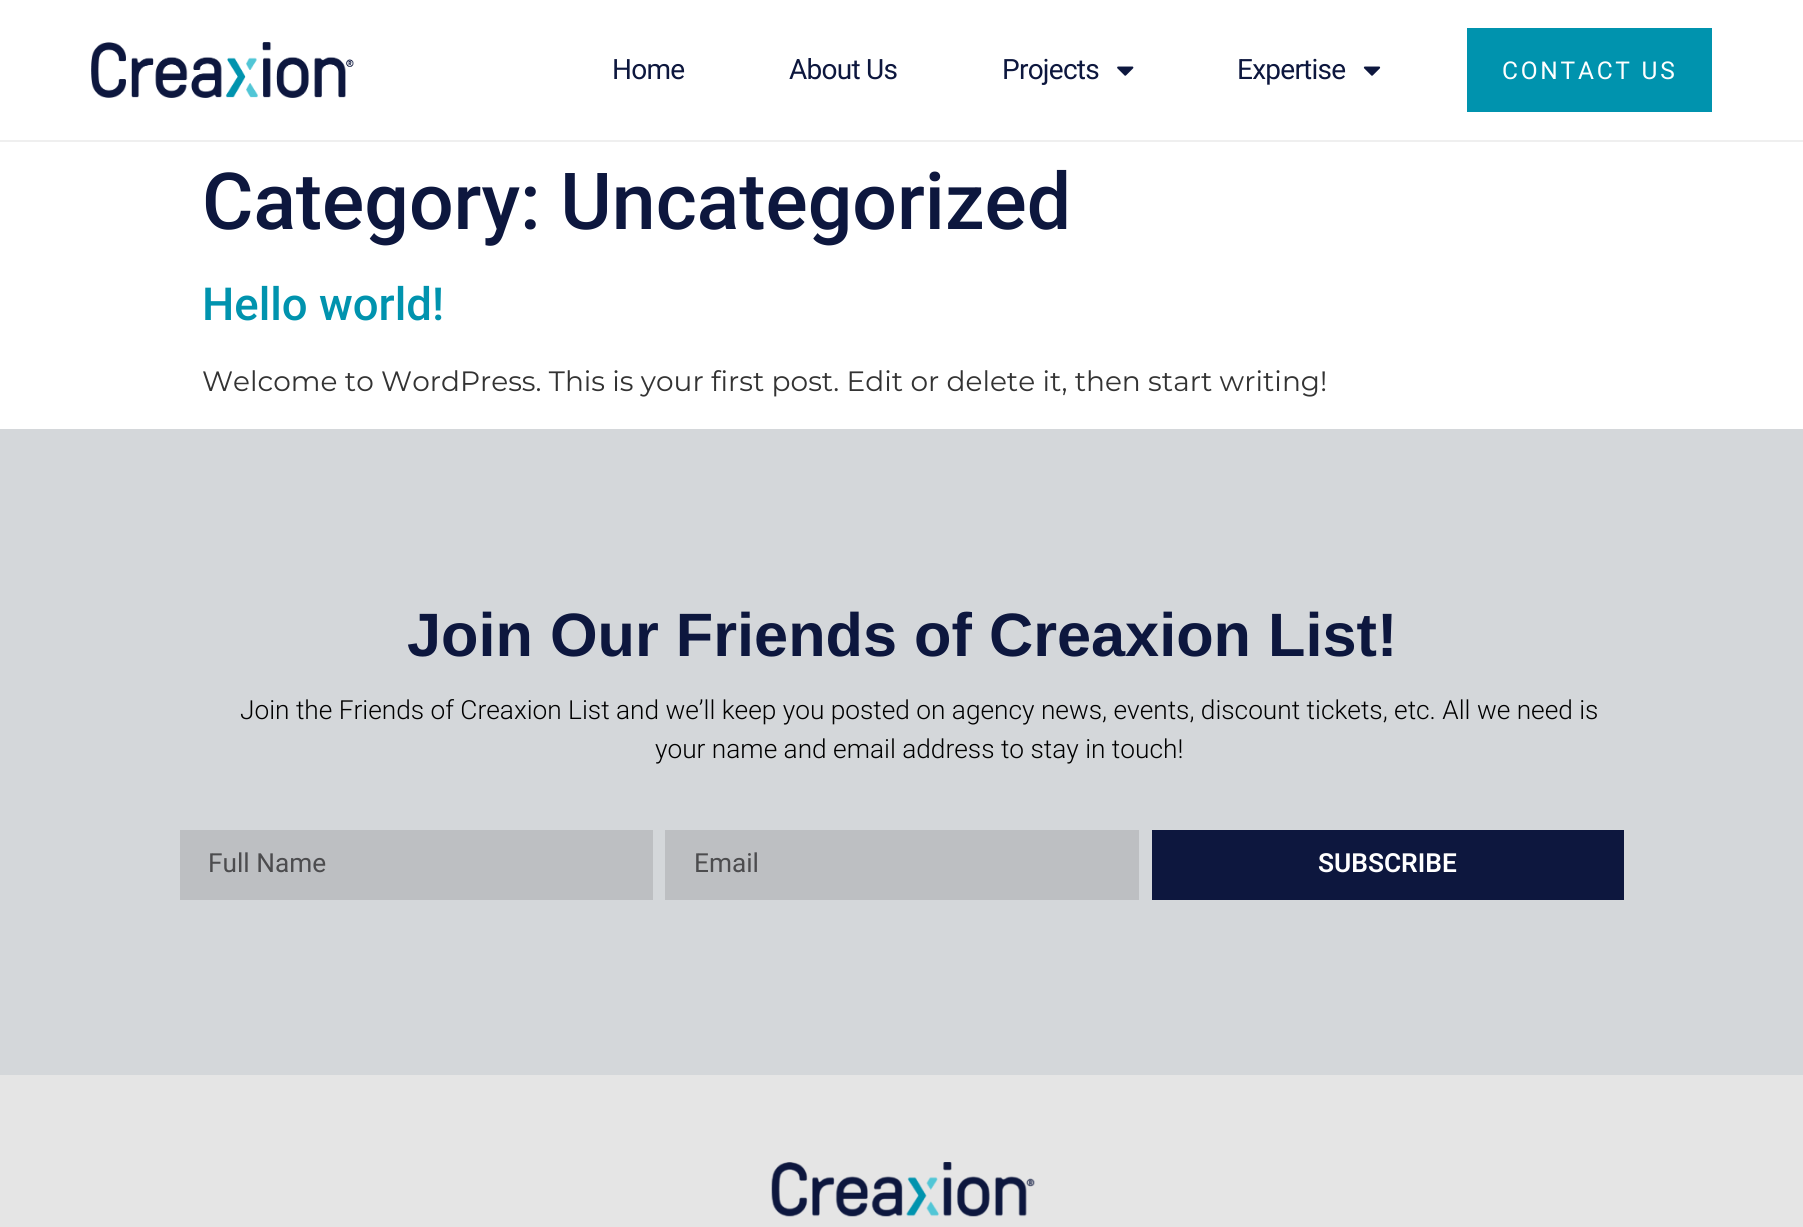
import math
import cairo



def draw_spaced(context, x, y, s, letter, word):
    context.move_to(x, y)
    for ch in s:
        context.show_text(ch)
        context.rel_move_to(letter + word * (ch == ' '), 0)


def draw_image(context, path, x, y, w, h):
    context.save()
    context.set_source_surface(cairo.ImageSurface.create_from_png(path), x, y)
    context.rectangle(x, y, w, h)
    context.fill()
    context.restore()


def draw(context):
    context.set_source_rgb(1, 1, 1)
    context.paint()
    context.set_source_rgb(239 / 255, 239 / 255, 239 / 255)
    context.rectangle(0, 140, 1803, 2)
    context.fill()
    draw_image(context, "images/1.png", 91, 42, 263, 56)
    draw_image(context, "images/2.png", 1117, 66, 17, 10)
    draw_image(context, "images/3.png", 1363, 66, 18, 10)
    context.set_source_rgb(0, 147 / 255, 174 / 255)
    context.rectangle(1467, 28, 245, 84)
    context.fill()
    context.set_source_rgb(212 / 255, 215 / 255, 218 / 255)
    context.rectangle(0, 429, 1803, 646)
    context.fill()
    context.set_source_rgb(189 / 255, 191 / 255, 194 / 255)
    context.rectangle(180, 830, 473, 70)
    context.fill()
    context.rectangle(665, 830, 474, 70)
    context.fill()
    context.set_source_rgb(13 / 255, 23 / 255, 62 / 255)
    context.rectangle(1152, 830, 472, 70)
    context.fill()
    context.set_source_rgb(229 / 255, 229 / 255, 229 / 255)
    context.rectangle(0, 1075, 1803, 152)
    context.fill()
    draw_image(context, "images/4.png", 771, 1162, 264, 55)
    context.select_font_face("Roboto")
    context.set_font_size(28)
    context.set_source_rgb(13 / 255, 23 / 255, 62 / 255)
    draw_spaced(context, 612, 79, "Home", -0.75, 0)
    draw_spaced(context, 789, 79, "About Us", -0.75, 0)
    draw_spaced(context, 1002, 79, "Projects", -0.75, 0)
    draw_spaced(context, 1237, 79, "Expertise", -0.75, 0)
    context.set_font_size(24.5)
    context.set_source_rgb(1, 1, 1)
    draw_spaced(context, 1502, 79, "CONTACT US", 2.75, 0)
    context.select_font_face("Roboto Medium")
    context.set_font_size(78.75)
    context.set_source_rgb(13 / 255, 23 / 255, 62 / 255)
    context.move_to(202, 229)
    context.show_text("Category: Uncategorized")
    context.set_font_size(45.5)
    context.set_source_rgb(0, 147 / 255, 174 / 255)
    context.move_to(202, 320)
    context.show_text("Hello world!")
    context.select_font_face("Montserrat")
    context.set_font_size(28)
    context.set_source_rgb(51 / 255, 51 / 255, 51 / 255)
    context.move_to(202, 391)
    context.show_text("Welcome to WordPress. This is your first post. Edit or delete it, then start writing!")
    context.select_font_face("Liberation Sans", cairo.FontSlant.NORMAL, cairo.FontWeight.BOLD)
    context.set_font_size(61.25)
    context.set_source_rgb(13 / 255, 23 / 255, 62 / 255)
    context.move_to(407, 656)
    context.show_text("Join Our Friends of Creaxion List!")
    context.select_font_face("Roboto Light")
    context.set_font_size(26.25)
    context.set_source_rgb(0, 0, 0)
    context.move_to(240, 719)
    context.show_text("Join the Friends of Creaxion List and we’ll keep you posted on agency news, events, discount tickets, etc. All we need is")
    context.move_to(655, 758)
    context.show_text("your name and email address to stay in touch!")
    context.select_font_face("Roboto")
    context.set_source_rgb(76 / 255, 76 / 255, 78 / 255)
    context.move_to(208, 872)
    context.show_text("Full Name")
    context.move_to(694, 872)
    context.show_text("Email")
    context.select_font_face("Roboto SemiBold")
    context.set_source_rgb(1, 1, 1)
    context.move_to(1318, 872)
    context.show_text("SUBSCRIBE")


surface = cairo.ImageSurface(cairo.Format.RGB24, 1803, 1227)
context = cairo.Context(surface)
options = cairo.FontOptions()
options.set_hint_metrics(cairo.HintMetrics.OFF)
options.set_hint_style(cairo.HintStyle.NONE)
context.set_font_options(options)
context.set_miter_limit(4)
draw(context)
surface.write_to_png("out.png")
